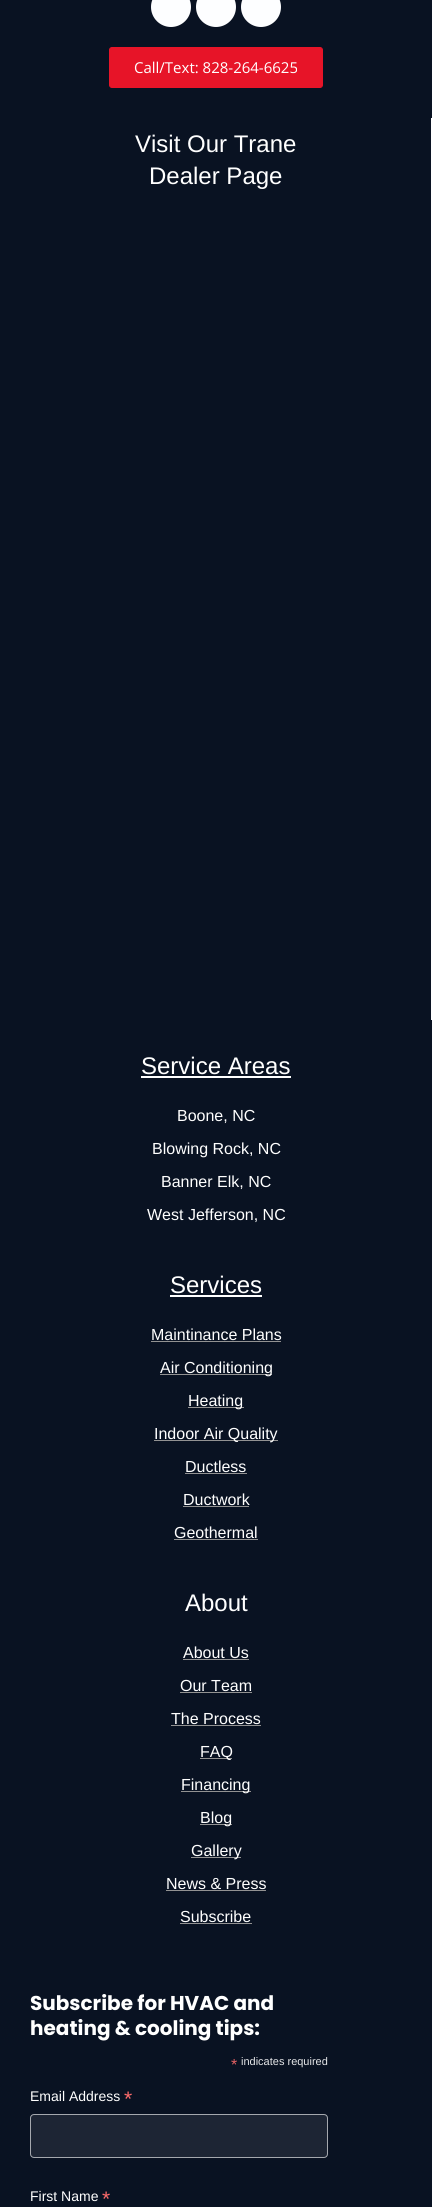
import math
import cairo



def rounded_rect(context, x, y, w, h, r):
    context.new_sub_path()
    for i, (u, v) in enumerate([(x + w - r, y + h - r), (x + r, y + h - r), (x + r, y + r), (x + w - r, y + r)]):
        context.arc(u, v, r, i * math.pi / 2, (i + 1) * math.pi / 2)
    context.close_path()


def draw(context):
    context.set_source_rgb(9 / 255, 18 / 255, 34 / 255)
    context.paint()
    context.set_source_rgb(253 / 255, 254 / 255, 1)
    context.arc(171, 7, 20, 0, 2 * math.pi)
    context.fill()
    context.arc(216, 7, 20, 0, 2 * math.pi)
    context.fill()
    context.arc(261, 7, 20, 0, 2 * math.pi)
    context.fill()
    context.set_source_rgb(231 / 255, 20 / 255, 40 / 255)
    rounded_rect(context, 109.5, 47.5, 213, 40, 2.5)
    context.fill_preserve()
    context.set_line_width(1)
    context.stroke()
    context.set_source_rgb(1, 1, 1)
    context.rectangle(431, 118, 1, 902)
    context.fill()
    context.rectangle(141, 1076, 150, 2)
    context.fill()
    context.rectangle(170, 1295, 92, 2)
    context.fill()
    context.set_source_rgb(146 / 255, 146 / 255, 146 / 255)
    context.rectangle(151, 1341, 130, 1)
    context.fill()
    context.rectangle(160, 1374, 112, 1)
    context.fill()
    context.rectangle(188, 1407, 56, 1)
    context.fill()
    context.rectangle(154, 1440, 124, 1)
    context.fill()
    context.rectangle(185, 1473, 62, 1)
    context.fill()
    context.rectangle(183, 1506, 66, 1)
    context.fill()
    context.rectangle(174, 1539, 84, 1)
    context.fill()
    context.rectangle(183, 1659, 66, 1)
    context.fill()
    context.rectangle(180, 1692, 72, 1)
    context.fill()
    context.rectangle(171, 1725, 90, 1)
    context.fill()
    context.rectangle(200, 1758, 32, 1)
    context.fill()
    context.rectangle(181, 1791, 70, 1)
    context.fill()
    context.rectangle(200, 1824, 32, 1)
    context.fill()
    context.rectangle(191, 1857, 50, 1)
    context.fill()
    context.rectangle(166, 1890, 100, 1)
    context.fill()
    context.rectangle(180, 1923, 72, 1)
    context.fill()
    context.set_source_rgb(29 / 255, 37 / 255, 52 / 255)
    rounded_rect(context, 30, 2114, 298, 44, 4)
    context.fill()
    rounded_rect(context, 30.5, 2114.5, 297, 43, 3.5)
    context.set_source_rgba(1, 1, 1, 0.6)
    context.stroke()
    context.select_font_face("Open Sans")
    context.set_font_size(15)
    context.set_source_rgb(1, 1, 1)
    context.move_to(134, 73)
    context.show_text("Call/Text: 828-264-6625")
    context.select_font_face("Liberation Sans")
    context.set_font_size(24)
    context.move_to(135, 152)
    context.show_text("Visit Our Trane")
    context.move_to(149, 184)
    context.show_text("Dealer Page")
    context.move_to(141, 1074)
    context.show_text("Service Areas")
    context.set_font_size(16)
    context.move_to(177, 1121)
    context.show_text("Boone, NC")
    context.move_to(152, 1154)
    context.show_text("Blowing Rock, NC")
    context.move_to(161, 1187)
    context.show_text("Banner Elk, NC")
    context.move_to(147, 1220)
    context.show_text("West Jefferson, NC")
    context.set_font_size(24)
    context.move_to(170, 1293)
    context.show_text("Services")
    context.set_font_size(16)
    context.move_to(151, 1340)
    context.show_text("Maintinance Plans")
    context.move_to(160, 1373)
    context.show_text("Air Conditioning")
    context.move_to(188, 1406)
    context.show_text("Heating")
    context.move_to(154, 1439)
    context.show_text("Indoor Air Quality")
    context.move_to(185, 1472)
    context.show_text("Ductless")
    context.move_to(183, 1505)
    context.show_text("Ductwork")
    context.move_to(174, 1538)
    context.show_text("Geothermal")
    context.set_font_size(24)
    context.move_to(185, 1611)
    context.show_text("About")
    context.set_font_size(16)
    context.move_to(183, 1658)
    context.show_text("About Us")
    context.move_to(180, 1691)
    context.show_text("Our Team")
    context.move_to(171, 1724)
    context.show_text("The Process")
    context.move_to(200, 1757)
    context.show_text("FAQ")
    context.move_to(181, 1790)
    context.show_text("Financing")
    context.move_to(200, 1823)
    context.show_text("Blog")
    context.move_to(191, 1856)
    context.show_text("Gallery")
    context.move_to(166, 1889)
    context.show_text("News & Press")
    context.move_to(180, 1922)
    context.show_text("Subscribe")
    context.select_font_face("Poppins", cairo.FontSlant.NORMAL, cairo.FontWeight.BOLD)
    context.set_font_size(20)
    context.move_to(30, 2010)
    context.show_text("Subscribe for HVAC and")
    context.move_to(30, 2035)
    context.show_text("heating & cooling tips:")
    context.select_font_face("Liberation Sans")
    context.set_font_size(16)
    context.set_source_rgb(230 / 255, 98 / 255, 100 / 255)
    context.move_to(231, 2070)
    context.show_text("*")
    context.set_font_size(11)
    context.set_source_rgb(230 / 255, 231 / 255, 233 / 255)
    context.move_to(241, 2065)
    context.show_text("indicates required")
    context.set_font_size(14)
    context.set_source_rgb(1, 1, 1)
    context.move_to(30, 2101)
    context.show_text("Email Address")
    context.set_font_size(21)
    context.set_source_rgb(1, 107 / 255, 107 / 255)
    context.move_to(124, 2106)
    context.show_text("*")
    context.set_font_size(14)
    context.set_source_rgb(1, 1, 1)
    context.move_to(30, 2201)
    context.show_text("First Name")
    context.set_font_size(21)
    context.set_source_rgb(1, 107 / 255, 107 / 255)
    context.move_to(102, 2206)
    context.show_text("*")


surface = cairo.ImageSurface(cairo.Format.RGB24, 432, 2207)
context = cairo.Context(surface)
options = cairo.FontOptions()
options.set_hint_metrics(cairo.HintMetrics.OFF)
options.set_hint_style(cairo.HintStyle.NONE)
context.set_font_options(options)
context.set_miter_limit(4)
draw(context)
surface.write_to_png("out.png")
